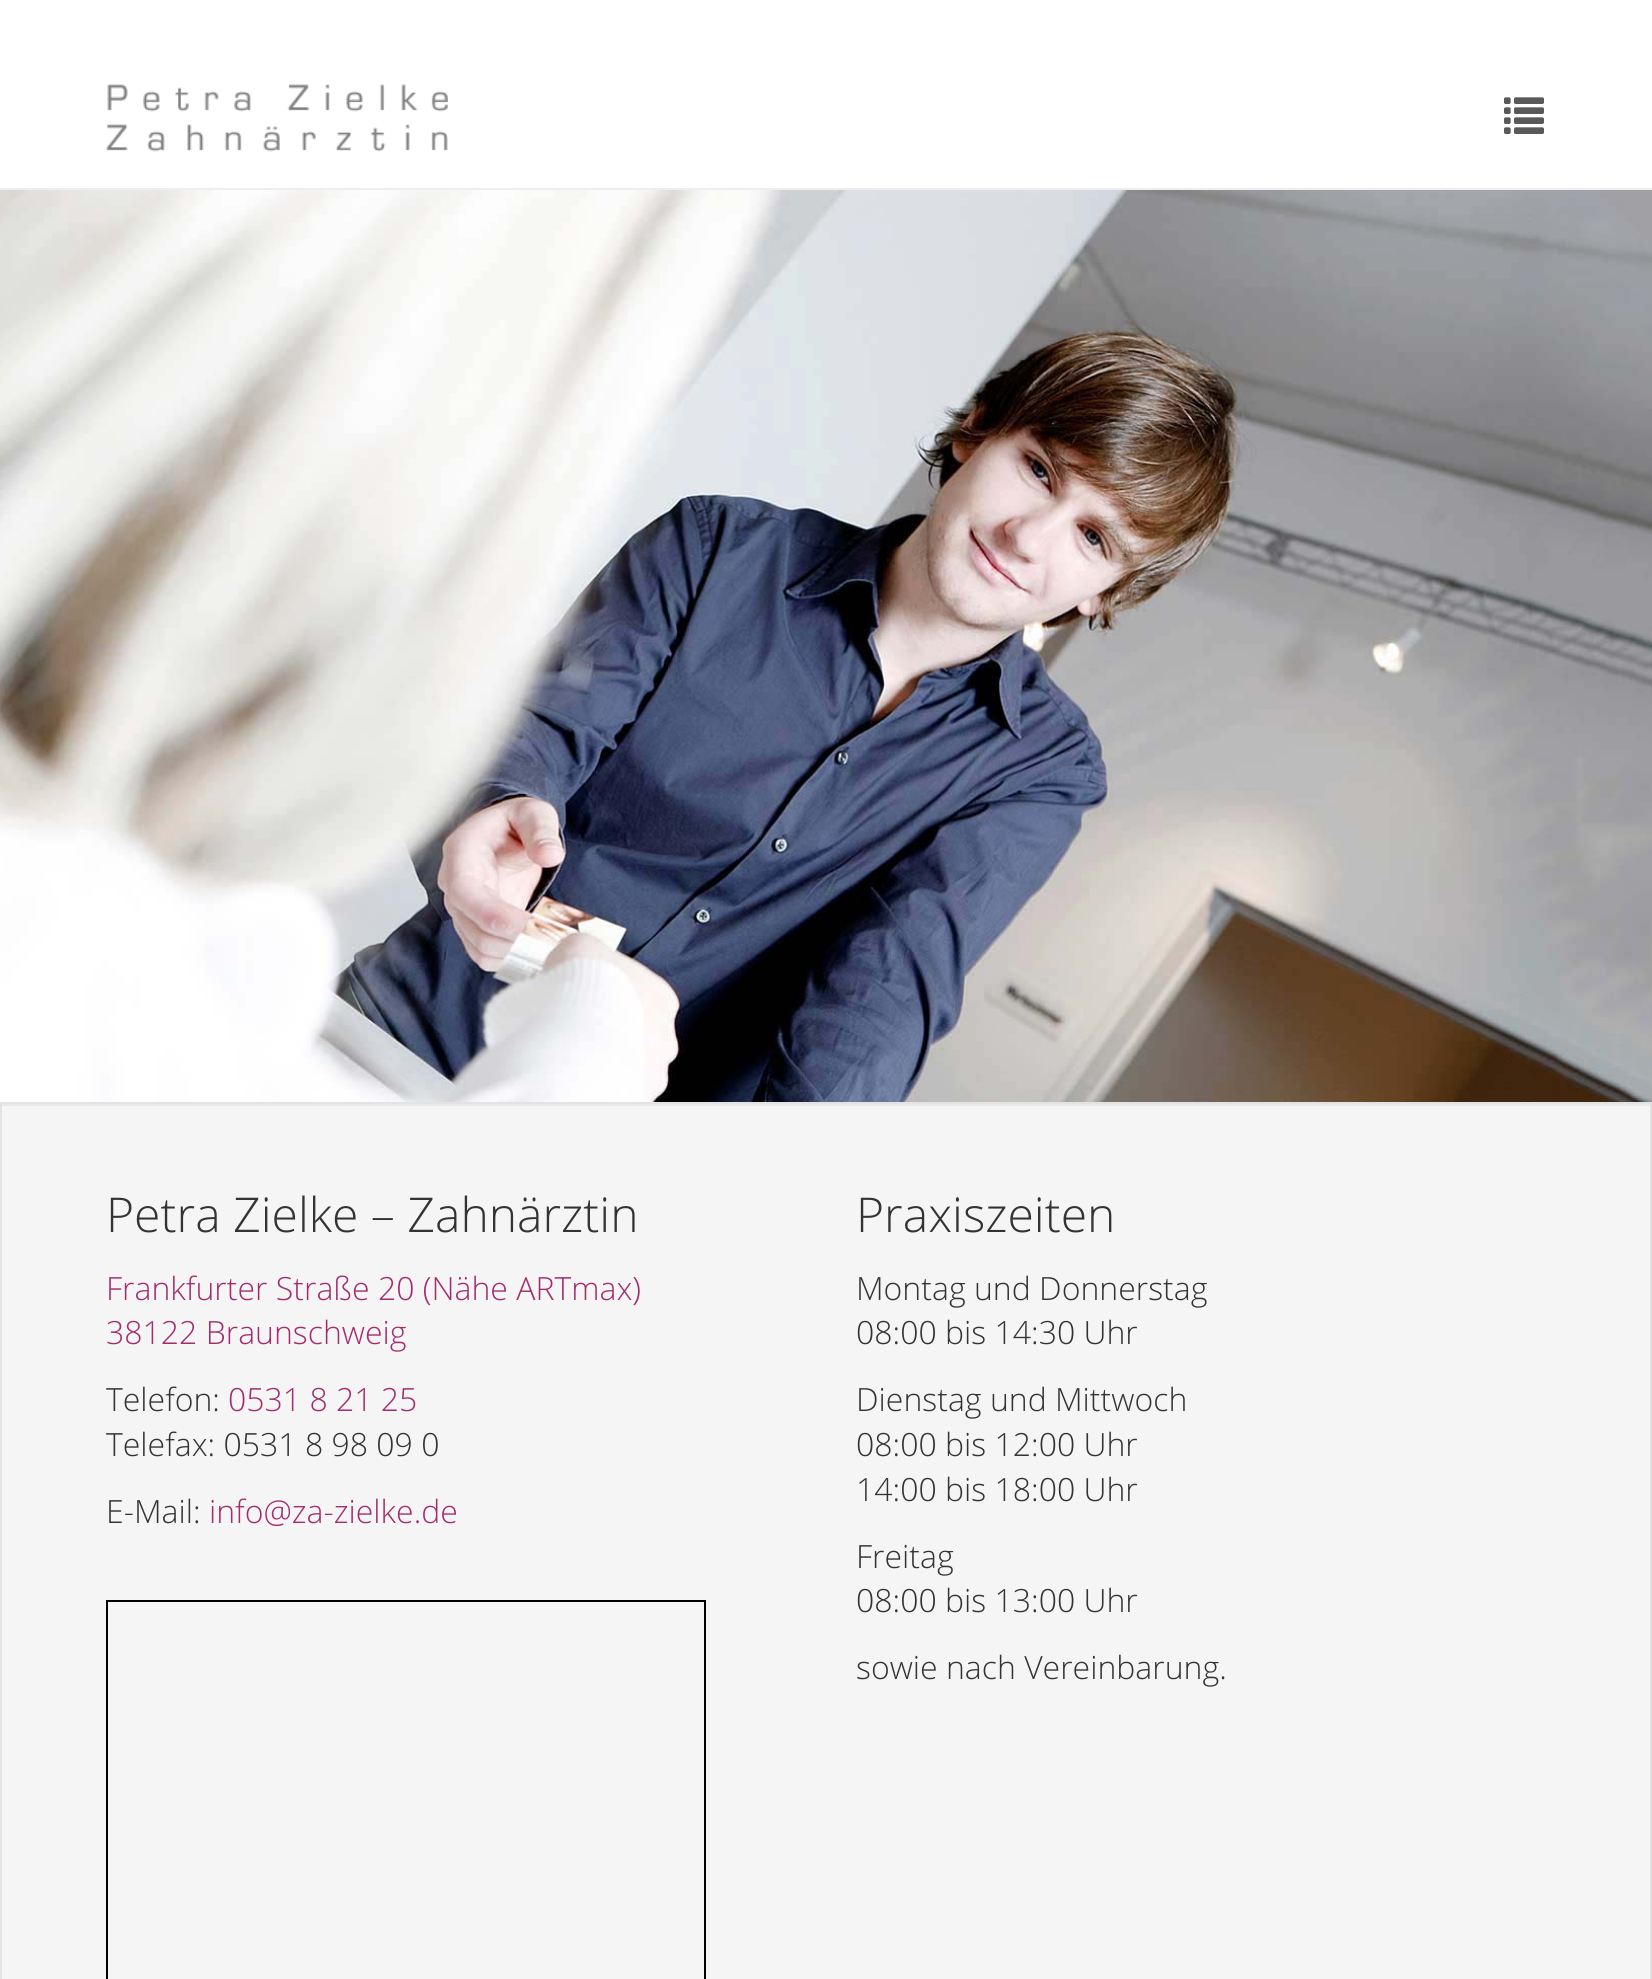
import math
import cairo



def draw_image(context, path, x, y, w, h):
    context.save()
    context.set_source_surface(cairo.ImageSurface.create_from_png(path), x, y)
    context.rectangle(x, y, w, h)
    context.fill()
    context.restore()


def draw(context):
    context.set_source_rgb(1, 1, 1)
    context.paint()
    context.set_source_rgb(238 / 255, 238 / 255, 238 / 255)
    context.rectangle(0, 188, 1652, 2)
    context.fill()
    draw_image(context, "images/1.png", 106, 84, 342, 68)
    draw_image(context, "images/2.png", 1504, 97, 40, 37)
    draw_image(context, "images/3.png", 0, 190, 1652, 912)
    context.set_source_rgb(245 / 255, 245 / 255, 245 / 255)
    context.rectangle(2, 1106, 1648, 873)
    context.fill()
    context.set_source_rgb(233 / 255, 233 / 255, 233 / 255)
    context.rectangle(2, 1104, 1648, 2)
    context.fill()
    context.rectangle(1, 1103, 1650, 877)
    context.set_source_rgb(227 / 255, 227 / 255, 227 / 255)
    context.stroke()
    context.rectangle(107, 1601, 598, 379)
    context.set_source_rgb(0, 0, 0)
    context.stroke()
    context.select_font_face("Open Sans Light")
    context.set_font_size(48)
    context.set_source_rgb(51 / 255, 51 / 255, 51 / 255)
    context.move_to(106, 1232)
    context.show_text("Petra Zielke – Zahnärztin")
    context.set_font_size(32)
    context.set_source_rgb(164 / 255, 43 / 255, 109 / 255)
    context.move_to(106, 1300)
    context.show_text("Frankfurter Straße 20 (Nähe ARTmax)")
    context.move_to(106, 1344)
    context.show_text("38122 Braunschweig")
    context.set_source_rgb(51 / 255, 51 / 255, 51 / 255)
    context.move_to(106, 1411)
    context.show_text("Telefon:")
    context.set_source_rgb(164 / 255, 43 / 255, 109 / 255)
    context.move_to(228, 1411)
    context.show_text("0531 8 21 25")
    context.set_source_rgb(51 / 255, 51 / 255, 51 / 255)
    context.move_to(106, 1456)
    context.show_text("Telefax: 0531 8 98 09 0")
    context.move_to(106, 1523)
    context.show_text("E-Mail:")
    context.set_source_rgb(164 / 255, 43 / 255, 109 / 255)
    context.move_to(209, 1523)
    context.show_text("info@za-zielke.de")
    context.set_font_size(48)
    context.set_source_rgb(51 / 255, 51 / 255, 51 / 255)
    context.move_to(856, 1232)
    context.show_text("Praxiszeiten")
    context.set_font_size(32)
    context.move_to(856, 1300)
    context.show_text("Montag und Donnerstag")
    context.move_to(856, 1344)
    context.show_text("08:00 bis 14:30 Uhr")
    context.move_to(856, 1411)
    context.show_text("Dienstag und Mittwoch")
    context.move_to(856, 1456)
    context.show_text("08:00 bis 12:00 Uhr")
    context.move_to(856, 1501)
    context.show_text("14:00 bis 18:00 Uhr")
    context.move_to(856, 1568)
    context.show_text("Freitag")
    context.move_to(856, 1612)
    context.show_text("08:00 bis 13:00 Uhr")
    context.move_to(856, 1679)
    context.show_text("sowie nach Vereinbarung.")


surface = cairo.ImageSurface(cairo.Format.RGB24, 1652, 1979)
context = cairo.Context(surface)
options = cairo.FontOptions()
options.set_hint_metrics(cairo.HintMetrics.OFF)
options.set_hint_style(cairo.HintStyle.NONE)
context.set_font_options(options)
context.set_miter_limit(4)
draw(context)
surface.write_to_png("out.png")
